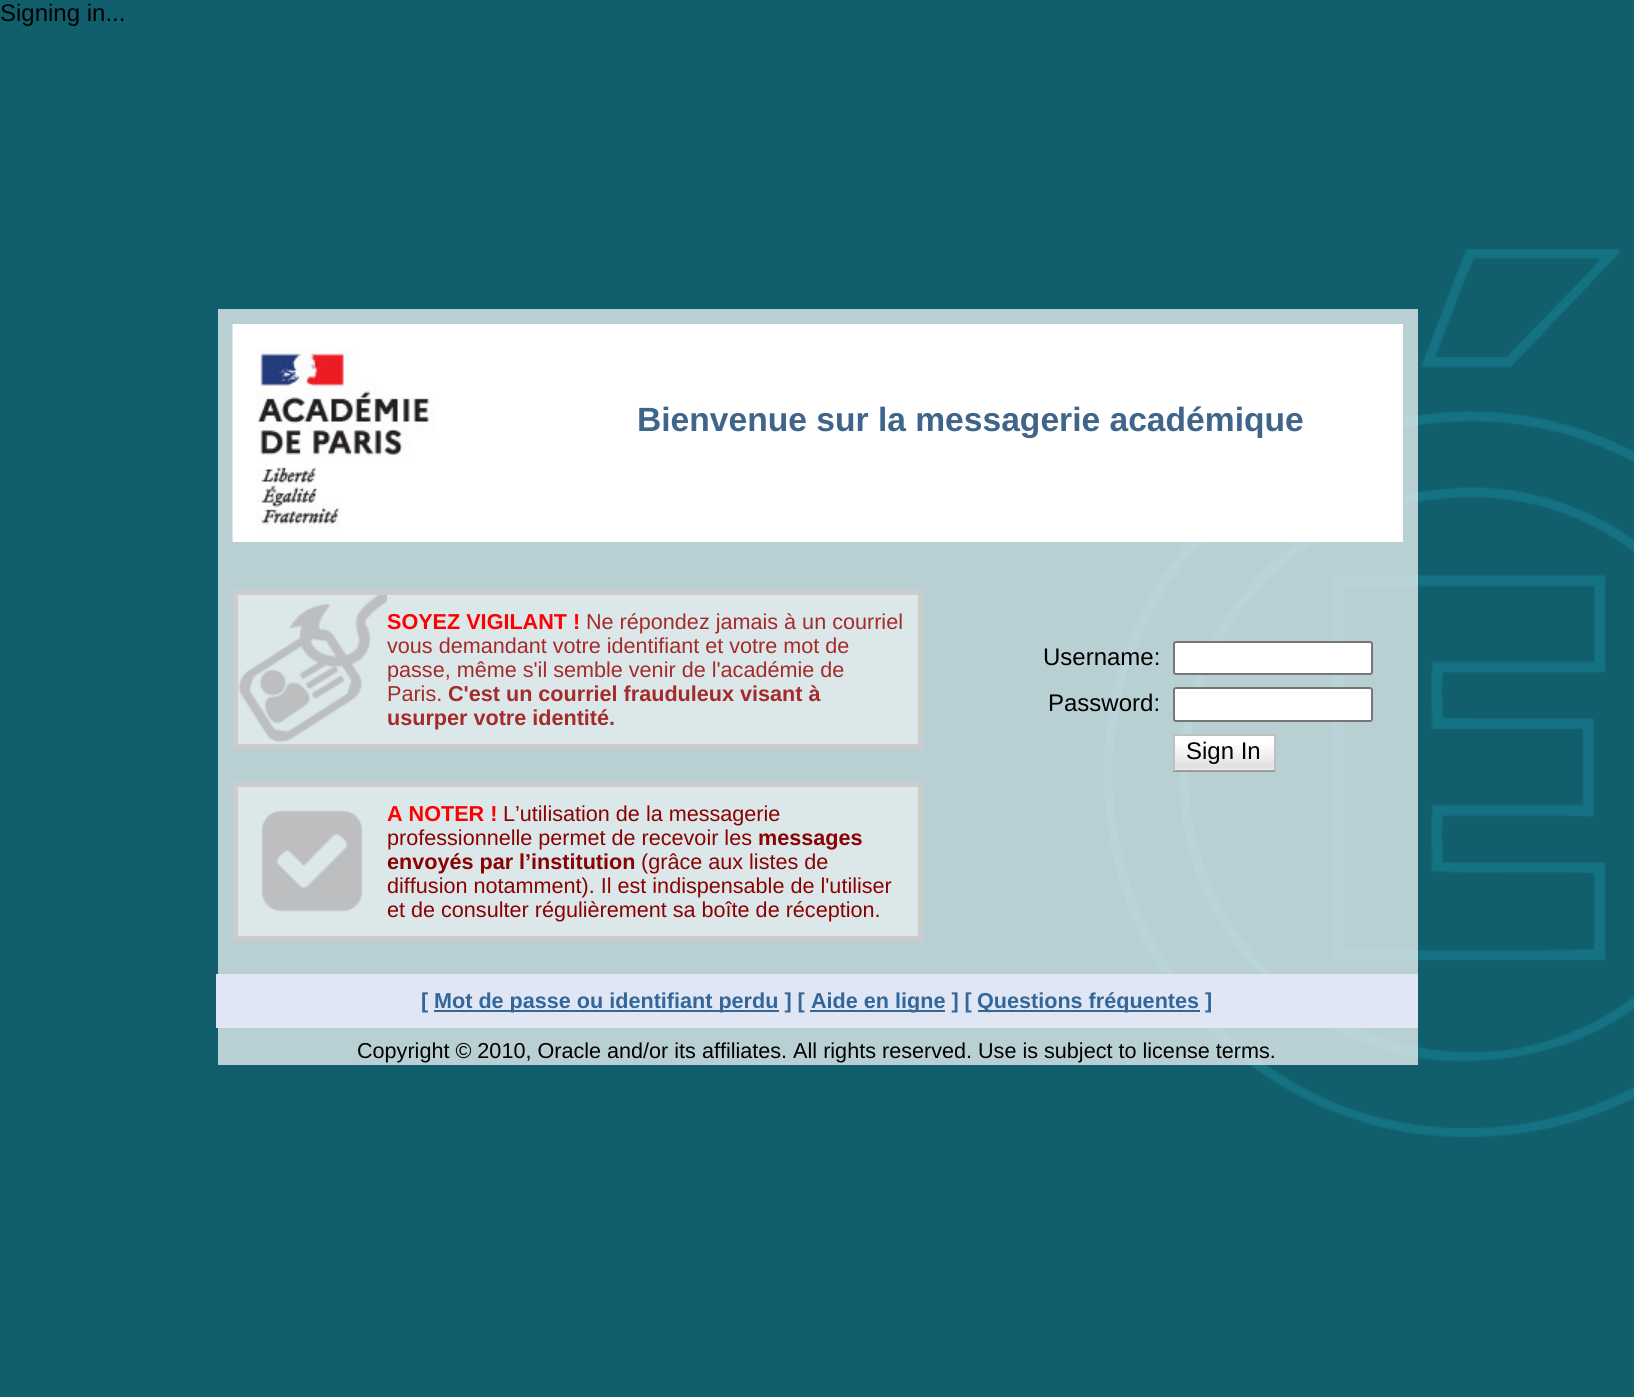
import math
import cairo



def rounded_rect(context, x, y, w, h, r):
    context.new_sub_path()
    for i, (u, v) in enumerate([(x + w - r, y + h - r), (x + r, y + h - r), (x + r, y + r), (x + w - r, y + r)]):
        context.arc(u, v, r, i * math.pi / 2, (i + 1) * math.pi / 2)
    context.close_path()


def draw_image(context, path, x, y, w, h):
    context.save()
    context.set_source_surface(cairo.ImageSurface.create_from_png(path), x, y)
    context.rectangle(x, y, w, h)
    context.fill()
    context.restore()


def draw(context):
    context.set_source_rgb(17 / 255, 94 / 255, 108 / 255)
    context.paint()
    draw_image(context, "images/1.png", 1104, 249, 530, 889)
    context.set_source_rgba(1, 1, 1, 0.7)
    context.rectangle(218, 309, 1200, 756)
    context.fill()
    context.set_source_rgb(1, 1, 1)
    context.rectangle(233, 324, 1170, 218)
    context.fill()
    draw_image(context, "images/2.png", 232, 324, 204, 218)
    context.set_source_rgb(219 / 255, 231 / 255, 233 / 255)
    context.rectangle(238, 595, 680, 149)
    context.fill()
    draw_image(context, "images/3.png", 238, 595, 149, 148)
    context.rectangle(235.5, 592.5, 685, 154)
    context.set_source_rgb(204 / 255, 204 / 255, 204 / 255)
    context.set_line_width(5)
    context.stroke()
    context.set_source_rgb(219 / 255, 231 / 255, 233 / 255)
    context.rectangle(238, 787, 680, 149)
    context.fill()
    draw_image(context, "images/4.png", 261, 810, 102, 102)
    context.rectangle(235.5, 784.5, 685, 154)
    context.set_source_rgb(204 / 255, 204 / 255, 204 / 255)
    context.stroke()
    context.set_source_rgb(1, 1, 1)
    rounded_rect(context, 1174, 642, 198, 32, 2)
    context.fill_preserve()
    context.set_source_rgb(118 / 255, 118 / 255, 118 / 255)
    context.set_line_width(2)
    context.stroke()
    context.set_source_rgb(1, 1, 1)
    rounded_rect(context, 1174, 688, 198, 33, 2)
    context.fill_preserve()
    context.set_source_rgb(118 / 255, 118 / 255, 118 / 255)
    context.stroke()
    context.set_source_rgb(1, 1, 1)
    context.rectangle(1175, 736, 99, 34)
    context.fill()
    draw_image(context, "images/5.png", 1175, 745, 99, 25)
    context.set_source_rgb(192 / 255, 192 / 255, 192 / 255)
    context.rectangle(1173, 734, 102, 2)
    context.fill()
    context.rectangle(1274, 734, 2, 37)
    context.fill()
    context.set_source_rgb(155 / 255, 155 / 255, 155 / 255)
    context.rectangle(1173, 770, 102, 2)
    context.fill()
    context.set_source_rgb(192 / 255, 192 / 255, 192 / 255)
    context.rectangle(1173, 734, 2, 37)
    context.fill()
    context.set_source_rgb(224 / 255, 230 / 255, 243 / 255)
    context.rectangle(216, 974, 1202, 54)
    context.fill()
    context.set_source_rgb(51 / 255, 102 / 255, 153 / 255)
    context.rectangle(434, 1010, 345, 2)
    context.fill()
    context.rectangle(810, 1010, 135, 2)
    context.fill()
    context.rectangle(978, 1010, 222, 2)
    context.fill()
    context.select_font_face("Liberation Sans")
    context.set_font_size(24)
    context.set_source_rgb(0, 0, 0)
    context.move_to(0, 21)
    context.show_text("Signing in...")
    context.select_font_face("Liberation Sans", cairo.FontSlant.NORMAL, cairo.FontWeight.BOLD)
    context.set_font_size(33.6)
    context.set_source_rgb(63 / 255, 101 / 255, 139 / 255)
    context.move_to(637, 431)
    context.show_text("Bienvenue sur la messagerie académique")
    context.set_font_size(21.6)
    context.set_source_rgb(1, 0, 0)
    context.move_to(387, 629)
    context.show_text("SOYEZ VIGILANT !")
    context.select_font_face("Liberation Sans")
    context.set_source_rgb(165 / 255, 42 / 255, 42 / 255)
    context.move_to(586, 629)
    context.show_text("Ne répondez jamais à un courriel")
    context.move_to(387, 653)
    context.show_text("vous demandant votre identifiant et votre mot de")
    context.move_to(387, 677)
    context.show_text("passe, même s'il semble venir de l'académie de")
    context.move_to(387, 701)
    context.show_text("Paris.")
    context.select_font_face("Liberation Sans", cairo.FontSlant.NORMAL, cairo.FontWeight.BOLD)
    context.move_to(448, 701)
    context.show_text("C'est un courriel frauduleux visant à")
    context.move_to(387, 725)
    context.show_text("usurper votre identité.")
    context.set_source_rgb(1, 0, 0)
    context.move_to(387, 821)
    context.show_text("A NOTER !")
    context.select_font_face("Liberation Sans")
    context.set_source_rgb(139 / 255, 0, 0)
    context.move_to(503, 821)
    context.show_text("L’utilisation de la messagerie")
    context.move_to(387, 845)
    context.show_text("professionnelle permet de recevoir les")
    context.select_font_face("Liberation Sans", cairo.FontSlant.NORMAL, cairo.FontWeight.BOLD)
    context.move_to(758, 845)
    context.show_text("messages")
    context.move_to(387, 869)
    context.show_text("envoyés par l’institution")
    context.select_font_face("Liberation Sans")
    context.move_to(641, 869)
    context.show_text("(grâce aux listes de")
    context.move_to(387, 893)
    context.show_text("diffusion notamment). Il est indispensable de l'utiliser")
    context.move_to(387, 917)
    context.show_text("et de consulter régulièrement sa boîte de réception.")
    context.set_font_size(24)
    context.set_source_rgb(0, 0, 0)
    context.move_to(1043, 665)
    context.show_text("Username:")
    context.move_to(1048, 711)
    context.show_text("Password:")
    context.move_to(1186, 759)
    context.show_text("Sign In")
    context.select_font_face("Liberation Sans", cairo.FontSlant.NORMAL, cairo.FontWeight.BOLD)
    context.set_font_size(21.6)
    context.set_source_rgb(51 / 255, 102 / 255, 153 / 255)
    context.move_to(421, 1008)
    context.show_text("[")
    context.move_to(434, 1008)
    context.show_text("Mot de passe ou identifiant perdu ] [")
    context.move_to(811, 1008)
    context.show_text("Aide en ligne ] [")
    context.move_to(977, 1008)
    context.show_text("Questions fréquentes ]")
    context.select_font_face("Liberation Sans")
    context.set_source_rgb(0, 0, 0)
    context.move_to(357, 1058)
    context.show_text("Copyright © 2010, Oracle and/or its affiliates. All rights reserved.")
    context.move_to(978, 1058)
    context.show_text("Use is subject to license terms.")


surface = cairo.ImageSurface(cairo.Format.RGB24, 1634, 1397)
context = cairo.Context(surface)
options = cairo.FontOptions()
options.set_hint_metrics(cairo.HintMetrics.OFF)
options.set_hint_style(cairo.HintStyle.NONE)
context.set_font_options(options)
context.set_miter_limit(4)
draw(context)
surface.write_to_png("out.png")
